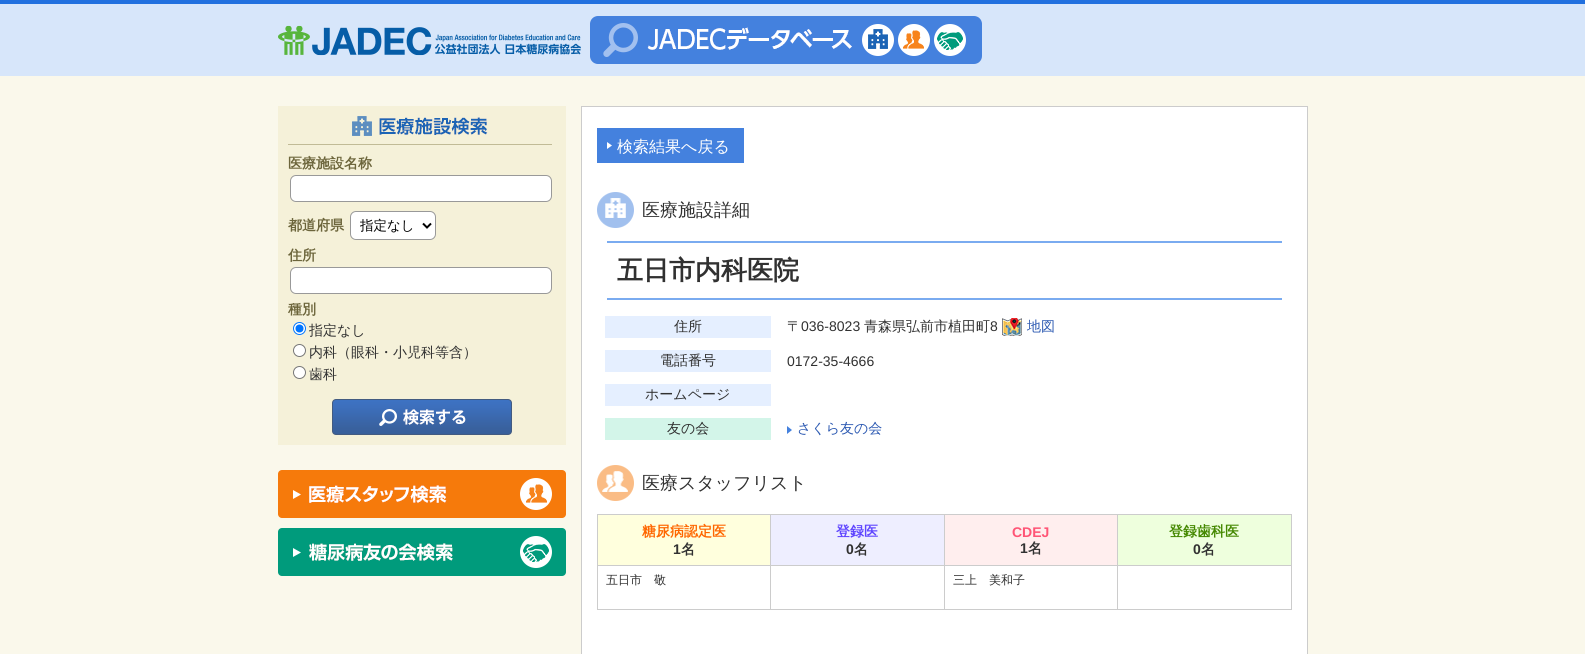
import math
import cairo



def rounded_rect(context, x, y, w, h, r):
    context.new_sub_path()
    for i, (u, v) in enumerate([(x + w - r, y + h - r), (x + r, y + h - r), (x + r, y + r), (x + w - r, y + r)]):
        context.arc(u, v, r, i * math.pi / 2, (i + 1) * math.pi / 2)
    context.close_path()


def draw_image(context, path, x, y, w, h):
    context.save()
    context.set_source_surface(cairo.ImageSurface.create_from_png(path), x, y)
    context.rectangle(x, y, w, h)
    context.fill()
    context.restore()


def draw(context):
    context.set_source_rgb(250 / 255, 248 / 255, 235 / 255)
    context.paint()
    draw_image(context, "images/1.png", 0, 0, 1585, 76)
    draw_image(context, "images/2.png", 278, 16, 704, 48)
    context.set_source_rgb(245 / 255, 241 / 255, 217 / 255)
    context.rectangle(278, 106, 288, 339)
    context.fill()
    draw_image(context, "images/3.png", 288, 116, 264, 29)
    context.set_source_rgb(1, 1, 1)
    rounded_rect(context, 290.5, 175.5, 261, 26, 5.5)
    context.fill_preserve()
    context.set_source_rgb(153 / 255, 153 / 255, 153 / 255)
    context.set_line_width(1)
    context.stroke()
    context.set_source_rgb(1, 1, 1)
    rounded_rect(context, 350.5, 211.5, 85, 28, 5.5)
    context.fill_preserve()
    context.set_source_rgb(153 / 255, 153 / 255, 153 / 255)
    context.stroke()
    context.new_path()
    context.move_to(423, 223.5)
    context.line_to(427, 227.5)
    context.line_to(431, 223.5)
    context.set_source_rgb(0, 0, 0)
    context.set_line_width(2)
    context.stroke()
    context.set_source_rgb(1, 1, 1)
    rounded_rect(context, 290.5, 267.5, 261, 26, 5.5)
    context.fill_preserve()
    context.set_source_rgb(153 / 255, 153 / 255, 153 / 255)
    context.set_line_width(1)
    context.stroke()
    context.set_source_rgb(1, 1, 1)
    context.arc(299.5, 328.5, 6, 0, 2 * math.pi)
    context.fill_preserve()
    context.set_source_rgb(0, 117 / 255, 1)
    context.stroke()
    context.arc(299.5, 328.5, 4, 0, 2 * math.pi)
    context.fill()
    context.set_source_rgb(1, 1, 1)
    context.arc(299.5, 350.5, 6, 0, 2 * math.pi)
    context.fill_preserve()
    context.set_source_rgb(118 / 255, 118 / 255, 118 / 255)
    context.stroke()
    context.set_source_rgb(1, 1, 1)
    context.arc(299.5, 372.5, 6, 0, 2 * math.pi)
    context.fill_preserve()
    context.set_source_rgb(118 / 255, 118 / 255, 118 / 255)
    context.stroke()
    draw_image(context, "images/4.png", 332, 399, 180, 36)
    draw_image(context, "images/5.png", 278, 470, 288, 48)
    draw_image(context, "images/6.png", 278, 528, 288, 48)
    context.set_source_rgb(1, 1, 1)
    context.rectangle(581.5, 106.5, 726, 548)
    context.fill_preserve()
    context.set_source_rgb(204 / 255, 204 / 255, 204 / 255)
    context.stroke()
    context.set_source_rgb(68 / 255, 129 / 255, 222 / 255)
    context.rectangle(597, 128, 147, 35)
    context.fill()
    draw_image(context, "images/7.png", 607, 142, 5, 7)
    draw_image(context, "images/8.png", 597, 192, 37, 36)
    context.set_source_rgb(122 / 255, 171 / 255, 240 / 255)
    context.rectangle(607, 241, 675, 2)
    context.fill()
    context.rectangle(607, 298, 675, 2)
    context.fill()
    context.set_source_rgb(229 / 255, 239 / 255, 1)
    context.rectangle(605, 316, 166, 22)
    context.fill()
    draw_image(context, "images/9.png", 1002, 318, 20, 18)
    context.rectangle(605, 350, 166, 22)
    context.fill()
    context.rectangle(605, 384, 166, 22)
    context.fill()
    context.set_source_rgb(211 / 255, 245 / 255, 233 / 255)
    context.rectangle(605, 418, 166, 22)
    context.fill()
    draw_image(context, "images/10.png", 787, 426, 5, 8)
    draw_image(context, "images/11.png", 597, 465, 37, 36)
    context.set_source_rgb(204 / 255, 204 / 255, 204 / 255)
    context.rectangle(597, 514, 695, 1)
    context.fill()
    context.rectangle(597, 514, 1, 96)
    context.fill()
    context.set_source_rgb(1, 1, 221 / 255)
    context.rectangle(598, 515, 172, 50)
    context.fill()
    context.set_source_rgb(204 / 255, 204 / 255, 204 / 255)
    context.rectangle(1291, 514, 1, 96)
    context.fill()
    context.rectangle(1117, 609, 175, 1)
    context.fill()
    context.rectangle(1117, 565, 1, 45)
    context.fill()
    context.rectangle(1117, 565, 175, 1)
    context.fill()
    context.rectangle(1117, 514, 1, 52)
    context.fill()
    context.rectangle(944, 609, 174, 1)
    context.fill()
    context.rectangle(944, 565, 1, 45)
    context.fill()
    context.rectangle(944, 565, 174, 1)
    context.fill()
    context.rectangle(944, 514, 1, 52)
    context.fill()
    context.rectangle(770, 609, 175, 1)
    context.fill()
    context.rectangle(770, 565, 1, 45)
    context.fill()
    context.rectangle(770, 565, 175, 1)
    context.fill()
    context.rectangle(770, 514, 1, 52)
    context.fill()
    context.rectangle(597, 565, 174, 1)
    context.fill()
    context.set_source_rgb(238 / 255, 238 / 255, 1)
    context.rectangle(771, 515, 173, 50)
    context.fill()
    context.set_source_rgb(1, 238 / 255, 238 / 255)
    context.rectangle(945, 515, 172, 50)
    context.fill()
    context.set_source_rgb(238 / 255, 1, 221 / 255)
    context.rectangle(1118, 515, 173, 50)
    context.fill()
    context.set_source_rgb(204 / 255, 204 / 255, 204 / 255)
    context.rectangle(597, 609, 174, 1)
    context.fill()
    context.select_font_face("WenQuanYi Zen Hei", cairo.FontSlant.NORMAL, cairo.FontWeight.BOLD)
    context.set_font_size(14)
    context.set_source_rgb(108 / 255, 101 / 255, 59 / 255)
    context.move_to(288, 168)
    context.show_text("医療施設名称")
    context.move_to(288, 230)
    context.show_text("都道府県")
    context.select_font_face("WenQuanYi Zen Hei Medium")
    context.set_font_size(13.5)
    context.set_source_rgb(0, 0, 0)
    context.move_to(360, 230)
    context.show_text("指定なし")
    context.select_font_face("WenQuanYi Zen Hei", cairo.FontSlant.NORMAL, cairo.FontWeight.BOLD)
    context.set_font_size(14)
    context.set_source_rgb(108 / 255, 101 / 255, 59 / 255)
    context.move_to(288, 260)
    context.show_text("住所")
    context.move_to(288, 314)
    context.show_text("種別")
    context.select_font_face("WenQuanYi Zen Hei Medium")
    context.set_source_rgb(49 / 255, 49 / 255, 49 / 255)
    context.move_to(309, 335)
    context.show_text("指定なし")
    context.move_to(309, 357)
    context.show_text("内科（眼科・小児科等含）")
    context.move_to(309, 379)
    context.show_text("歯科")
    context.set_font_size(16)
    context.set_source_rgb(1, 1, 1)
    context.move_to(617, 152)
    context.show_text("検索結果へ戻る")
    context.set_font_size(18)
    context.set_source_rgb(49 / 255, 49 / 255, 49 / 255)
    context.move_to(642, 216)
    context.show_text("医療施設詳細")
    context.select_font_face("WenQuanYi Zen Hei", cairo.FontSlant.NORMAL, cairo.FontWeight.BOLD)
    context.set_font_size(26)
    context.move_to(617, 279)
    context.show_text("五日市内科医院")
    context.select_font_face("WenQuanYi Zen Hei Medium")
    context.set_font_size(14)
    context.move_to(674, 331)
    context.show_text("住所")
    context.move_to(787, 331)
    context.show_text("〒")
    context.select_font_face("Liberation Sans")
    context.move_to(801, 331)
    context.show_text("036-8023")
    context.select_font_face("WenQuanYi Zen Hei Medium")
    context.move_to(864, 331)
    context.show_text("青森県弘前市植田町")
    context.select_font_face("Liberation Sans")
    context.move_to(990, 331)
    context.show_text("8")
    context.select_font_face("WenQuanYi Zen Hei Medium")
    context.set_source_rgb(45 / 255, 90 / 255, 178 / 255)
    context.move_to(1027, 331)
    context.show_text("地図")
    context.set_source_rgb(49 / 255, 49 / 255, 49 / 255)
    context.move_to(660, 365)
    context.show_text("電話番号")
    context.select_font_face("Liberation Sans")
    context.move_to(787, 366)
    context.show_text("0172-35-4666")
    context.select_font_face("WenQuanYi Zen Hei Medium")
    context.move_to(645, 399)
    context.show_text("ホームページ")
    context.move_to(667, 433)
    context.show_text("友の会")
    context.set_source_rgb(45 / 255, 90 / 255, 178 / 255)
    context.move_to(797, 433)
    context.show_text("さくら友の会")
    context.set_font_size(18)
    context.set_source_rgb(49 / 255, 49 / 255, 49 / 255)
    context.move_to(642, 489)
    context.show_text("医療スタッフリスト")
    context.select_font_face("WenQuanYi Zen Hei", cairo.FontSlant.NORMAL, cairo.FontWeight.BOLD)
    context.set_font_size(14)
    context.set_source_rgb(1, 102 / 255, 0)
    context.move_to(642, 536)
    context.show_text("糖尿病認定医")
    context.select_font_face("Liberation Sans", cairo.FontSlant.NORMAL, cairo.FontWeight.BOLD)
    context.set_source_rgb(49 / 255, 49 / 255, 49 / 255)
    context.move_to(673, 554)
    context.show_text("1")
    context.select_font_face("WenQuanYi Zen Hei", cairo.FontSlant.NORMAL, cairo.FontWeight.BOLD)
    context.move_to(681, 554)
    context.show_text("名")
    context.set_source_rgb(94 / 255, 68 / 255, 1)
    context.move_to(836, 536)
    context.show_text("登録医")
    context.select_font_face("Liberation Sans", cairo.FontSlant.NORMAL, cairo.FontWeight.BOLD)
    context.set_source_rgb(49 / 255, 49 / 255, 49 / 255)
    context.move_to(846, 554)
    context.show_text("0")
    context.select_font_face("WenQuanYi Zen Hei", cairo.FontSlant.NORMAL, cairo.FontWeight.BOLD)
    context.move_to(854, 554)
    context.show_text("名")
    context.select_font_face("Liberation Sans", cairo.FontSlant.NORMAL, cairo.FontWeight.BOLD)
    context.set_source_rgb(1, 85 / 255, 118 / 255)
    context.move_to(1012, 537)
    context.show_text("CDEJ")
    context.set_source_rgb(49 / 255, 49 / 255, 49 / 255)
    context.move_to(1020, 553)
    context.show_text("1")
    context.select_font_face("WenQuanYi Zen Hei", cairo.FontSlant.NORMAL, cairo.FontWeight.BOLD)
    context.move_to(1028, 553)
    context.show_text("名")
    context.set_source_rgb(68 / 255, 136 / 255, 0)
    context.move_to(1169, 536)
    context.show_text("登録歯科医")
    context.select_font_face("Liberation Sans", cairo.FontSlant.NORMAL, cairo.FontWeight.BOLD)
    context.set_source_rgb(49 / 255, 49 / 255, 49 / 255)
    context.move_to(1193, 554)
    context.show_text("0")
    context.select_font_face("WenQuanYi Zen Hei", cairo.FontSlant.NORMAL, cairo.FontWeight.BOLD)
    context.move_to(1201, 554)
    context.show_text("名")
    context.select_font_face("WenQuanYi Zen Hei Medium")
    context.set_font_size(12)
    context.move_to(606, 584)
    context.show_text("五日市　敬")
    context.move_to(953, 584)
    context.show_text("三上　美和子")


surface = cairo.ImageSurface(cairo.Format.RGB24, 1585, 654)
context = cairo.Context(surface)
options = cairo.FontOptions()
options.set_hint_metrics(cairo.HintMetrics.OFF)
options.set_hint_style(cairo.HintStyle.NONE)
context.set_font_options(options)
context.set_miter_limit(4)
draw(context)
surface.write_to_png("out.png")
